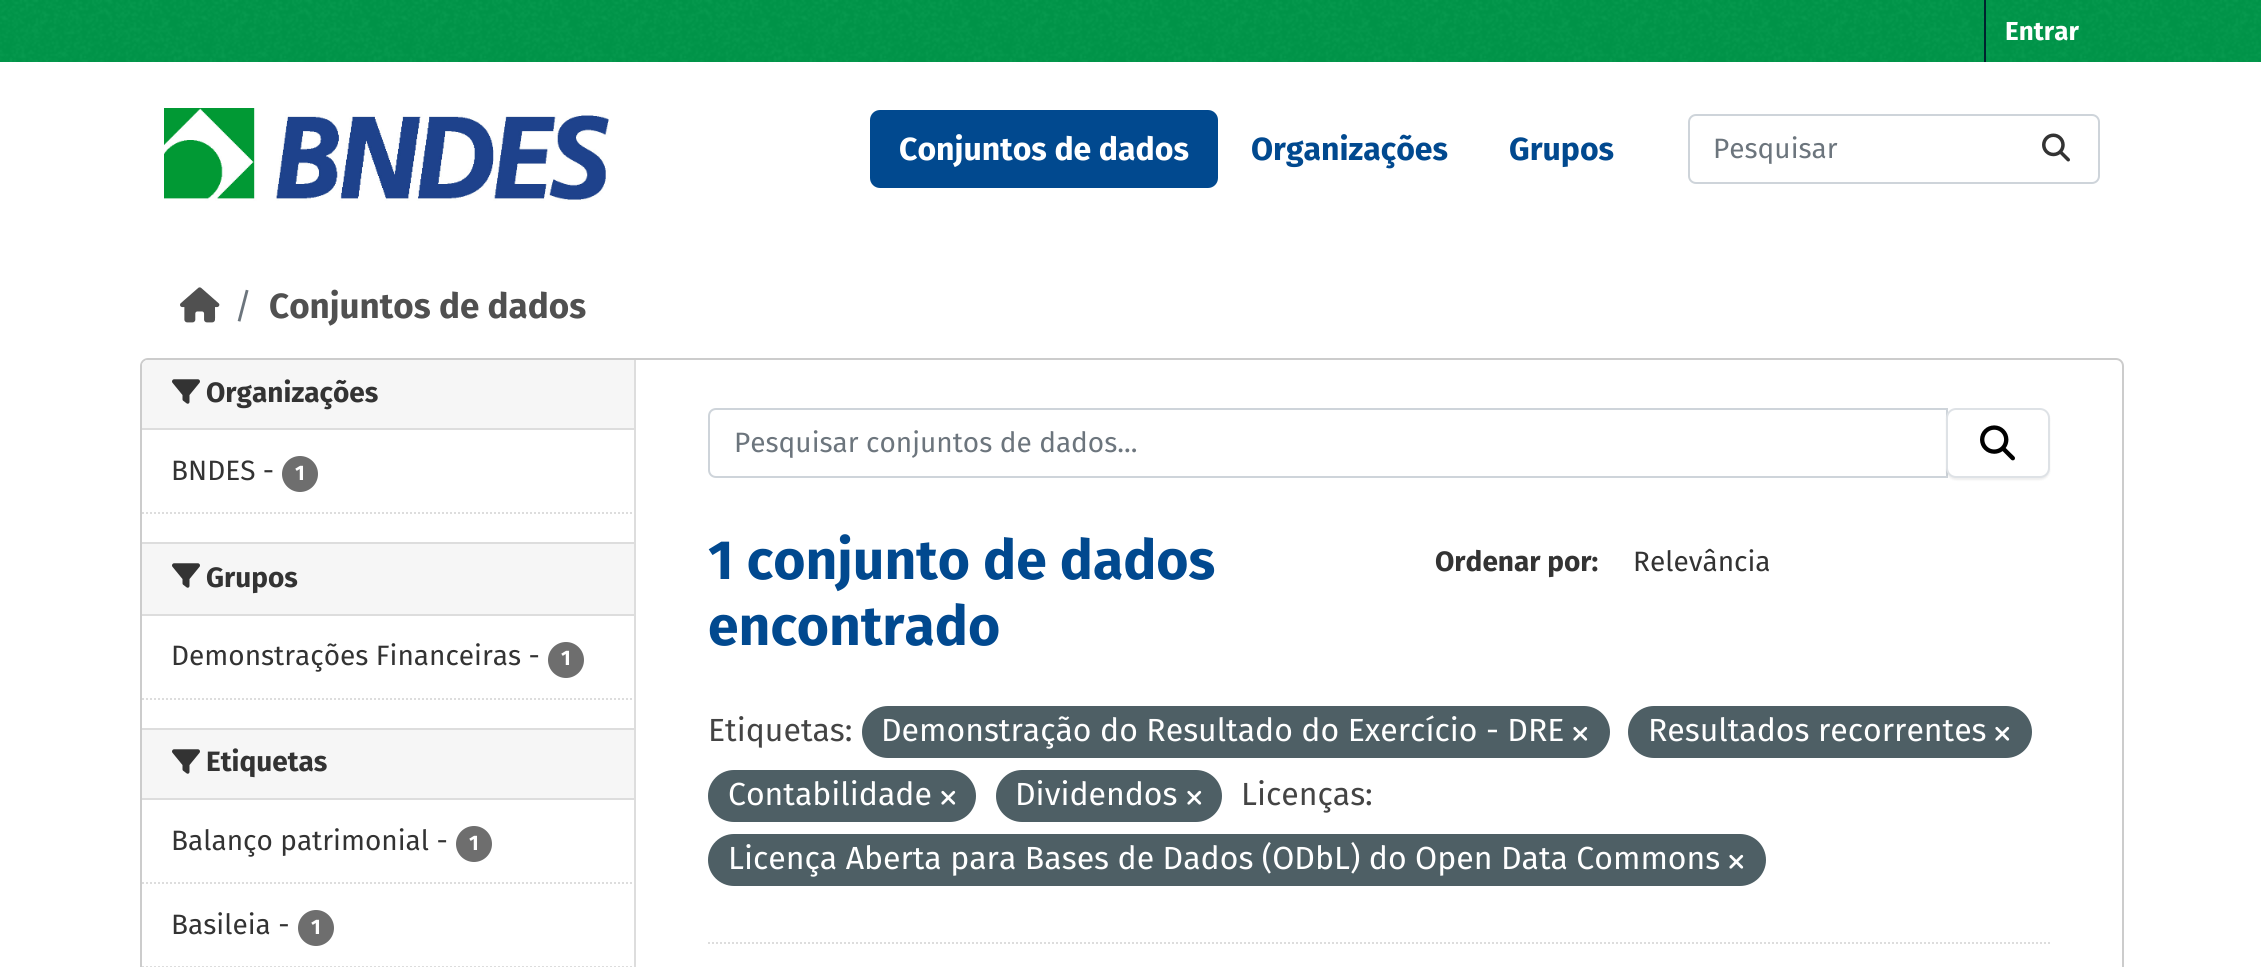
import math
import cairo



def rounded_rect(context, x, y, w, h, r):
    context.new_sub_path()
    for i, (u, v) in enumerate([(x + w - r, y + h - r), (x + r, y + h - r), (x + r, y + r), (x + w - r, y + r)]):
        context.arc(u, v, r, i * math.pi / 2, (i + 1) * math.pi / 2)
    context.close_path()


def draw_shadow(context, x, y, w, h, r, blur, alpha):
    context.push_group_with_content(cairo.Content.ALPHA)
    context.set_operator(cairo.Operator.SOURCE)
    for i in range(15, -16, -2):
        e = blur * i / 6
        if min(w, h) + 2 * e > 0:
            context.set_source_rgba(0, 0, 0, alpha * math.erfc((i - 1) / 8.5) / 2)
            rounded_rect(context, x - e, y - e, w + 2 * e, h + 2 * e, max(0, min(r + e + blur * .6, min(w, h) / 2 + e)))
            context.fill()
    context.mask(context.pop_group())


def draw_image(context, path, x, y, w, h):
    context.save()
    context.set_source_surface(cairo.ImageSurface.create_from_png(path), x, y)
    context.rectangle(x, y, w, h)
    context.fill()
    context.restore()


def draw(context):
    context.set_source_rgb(1, 1, 1)
    context.paint()
    context.set_source_rgb(0, 152 / 255, 74 / 255)
    context.rectangle(0, 0, 2261, 62)
    context.fill()
    draw_image(context, "images/1.png", 0, 0, 2261, 62)
    context.set_source_rgb(0, 35 / 255, 46 / 255)
    context.rectangle(1984, 0, 2, 62)
    context.fill()
    draw_image(context, "images/2.png", 164, 108, 445, 93)
    context.set_source_rgb(1 / 255, 73 / 255, 143 / 255)
    rounded_rect(context, 870, 110, 348, 78, 10)
    context.fill()
    rounded_rect(context, 1689, 115, 410, 68, 7)
    context.set_source_rgb(206 / 255, 212 / 255, 218 / 255)
    context.stroke()
    draw_image(context, "images/3.png", 2042, 133, 28, 29)
    draw_image(context, "images/4.png", 180, 287, 40, 36)
    rounded_rect(context, 141, 359, 1982, 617, 7)
    context.set_source_rgb(204 / 255, 204 / 255, 204 / 255)
    context.stroke()
    context.set_source_rgb(246 / 255, 246 / 255, 246 / 255)
    context.new_path()
    context.move_to(148, 360)
    context.line_to(634, 360)
    context.line_to(634, 430)
    context.line_to(142, 430)
    context.line_to(142, 366)
    context.curve_to(142, 362.5, 144.5, 360, 148, 360)
    context.close_path()
    context.fill()
    context.set_source_rgb(221 / 255, 221 / 255, 221 / 255)
    context.rectangle(142, 428, 492, 2)
    context.fill()
    draw_image(context, "images/5.png", 172, 379, 28, 25)
    context.set_source_rgb(110 / 255, 110 / 255, 110 / 255)
    context.arc(300, 474, 18, 0, 2 * math.pi)
    context.fill()
    context.new_path()
    context.move_to(142, 513)
    context.line_to(634, 513)
    context.set_source_rgb(221 / 255, 221 / 255, 221 / 255)
    context.set_dash([2, 2])
    context.stroke()
    context.set_source_rgb(246 / 255, 246 / 255, 246 / 255)
    context.rectangle(142, 544, 492, 70)
    context.fill()
    context.set_source_rgb(221 / 255, 221 / 255, 221 / 255)
    context.rectangle(142, 542, 492, 2)
    context.fill()
    context.rectangle(142, 614, 492, 2)
    context.fill()
    draw_image(context, "images/5.png", 172, 563, 28, 25)
    context.set_source_rgb(110 / 255, 110 / 255, 110 / 255)
    context.arc(566, 660, 18, 0, 2 * math.pi)
    context.fill()
    context.new_path()
    context.move_to(142, 699)
    context.line_to(634, 699)
    context.set_source_rgb(221 / 255, 221 / 255, 221 / 255)
    context.stroke()
    context.set_source_rgb(246 / 255, 246 / 255, 246 / 255)
    context.rectangle(142, 730, 492, 68)
    context.fill()
    context.set_source_rgb(221 / 255, 221 / 255, 221 / 255)
    context.rectangle(142, 728, 492, 2)
    context.fill()
    context.rectangle(142, 798, 492, 2)
    context.fill()
    draw_image(context, "images/5.png", 172, 749, 28, 25)
    context.new_path()
    context.move_to(142, 883)
    context.line_to(634, 883)
    context.stroke()
    context.set_source_rgb(110 / 255, 110 / 255, 110 / 255)
    context.arc(474, 844, 18, 0, 2 * math.pi)
    context.fill()
    context.new_path()
    context.move_to(142, 967)
    context.line_to(634, 967)
    context.set_source_rgb(221 / 255, 221 / 255, 221 / 255)
    context.stroke()
    context.set_source_rgb(110 / 255, 110 / 255, 110 / 255)
    context.arc(316, 928, 18, 0, 2 * math.pi)
    context.fill()
    context.set_source_rgb(221 / 255, 221 / 255, 221 / 255)
    context.rectangle(634, 360, 2, 607)
    context.fill()
    context.new_path()
    context.move_to(708, 943)
    context.line_to(2050, 943)
    context.stroke()
    context.new_path()
    context.move_to(716, 409)
    context.line_to(1947, 409)
    context.line_to(1947, 477)
    context.line_to(716, 477)
    context.curve_to(712, 477, 709, 474, 709, 470)
    context.line_to(709, 416)
    context.curve_to(709, 412, 712, 409, 716, 409)
    context.close_path()
    context.set_source_rgb(206 / 255, 212 / 255, 218 / 255)
    context.set_dash([])
    context.stroke()
    context.set_source_rgb(0, 0, 0)
    draw_shadow(context, 1946, 410, 104, 70, 10, 1, 0.07)
    context.set_source_rgb(1, 1, 1)
    rounded_rect(context, 1947, 409, 102, 68, 9)
    context.fill_preserve()
    context.set_source_rgb(222 / 255, 226 / 255, 230 / 255)
    context.stroke()
    draw_image(context, "images/6.png", 1980, 425, 35, 36)
    context.set_source_rgb(78 / 255, 95 / 255, 101 / 255)
    rounded_rect(context, 862, 706, 748, 52, 26)
    context.fill()
    draw_image(context, "images/7.png", 1573, 726, 15, 15)
    rounded_rect(context, 1628, 706, 404, 52, 26)
    context.fill()
    draw_image(context, "images/7.png", 1995, 726, 15, 15)
    rounded_rect(context, 708, 770, 268, 52, 26)
    context.fill()
    draw_image(context, "images/7.png", 941, 790, 15, 15)
    rounded_rect(context, 996, 770, 226, 52, 26)
    context.fill()
    draw_image(context, "images/7.png", 1187, 790, 15, 15)
    rounded_rect(context, 708, 834, 1058, 52, 26)
    context.fill()
    draw_image(context, "images/7.png", 1729, 854, 15, 15)
    context.select_font_face("Fira Sans", cairo.FontSlant.NORMAL, cairo.FontWeight.BOLD)
    context.set_font_size(26)
    context.set_source_rgb(1, 1, 1)
    context.move_to(2005, 40)
    context.show_text("Entrar")
    context.set_font_size(32)
    context.move_to(899, 160)
    context.show_text("Conjuntos de dados")
    context.set_source_rgb(1 / 255, 73 / 255, 143 / 255)
    context.move_to(1251, 160)
    context.show_text("Organizações")
    context.move_to(1509, 160)
    context.show_text("Grupos")
    context.select_font_face("Fira Sans")
    context.set_font_size(28)
    context.set_source_rgb(108 / 255, 117 / 255, 125 / 255)
    context.move_to(1713, 158)
    context.show_text("Pesquisar")
    context.set_font_size(35)
    context.move_to(234, 318)
    context.show_text("/")
    context.select_font_face("Fira Sans", cairo.FontSlant.NORMAL, cairo.FontWeight.BOLD)
    context.set_source_rgb(80 / 255, 80 / 255, 80 / 255)
    context.move_to(269, 318)
    context.show_text("Conjuntos de dados")
    context.set_font_size(28)
    context.set_source_rgb(51 / 255, 51 / 255, 51 / 255)
    context.move_to(206, 402)
    context.show_text("Organizações")
    context.select_font_face("Fira Sans")
    context.move_to(171, 480)
    context.show_text("BNDES -")
    context.select_font_face("Fira Sans", cairo.FontSlant.NORMAL, cairo.FontWeight.BOLD)
    context.set_font_size(21)
    context.set_source_rgb(1, 1, 1)
    context.move_to(295, 480)
    context.show_text("1")
    context.set_font_size(28)
    context.set_source_rgb(51 / 255, 51 / 255, 51 / 255)
    context.move_to(206, 587)
    context.show_text("Grupos")
    context.select_font_face("Fira Sans")
    context.move_to(171, 665)
    context.show_text("Demonstrações Financeiras -")
    context.select_font_face("Fira Sans", cairo.FontSlant.NORMAL, cairo.FontWeight.BOLD)
    context.set_font_size(21)
    context.set_source_rgb(1, 1, 1)
    context.move_to(561, 665)
    context.show_text("1")
    context.set_font_size(28)
    context.set_source_rgb(51 / 255, 51 / 255, 51 / 255)
    context.move_to(206, 771)
    context.show_text("Etiquetas")
    context.select_font_face("Fira Sans")
    context.move_to(171, 850)
    context.show_text("Balanço patrimonial -")
    context.select_font_face("Fira Sans", cairo.FontSlant.NORMAL, cairo.FontWeight.BOLD)
    context.set_font_size(21)
    context.set_source_rgb(1, 1, 1)
    context.move_to(469, 850)
    context.show_text("1")
    context.select_font_face("Fira Sans")
    context.set_font_size(28)
    context.set_source_rgb(51 / 255, 51 / 255, 51 / 255)
    context.move_to(171, 934)
    context.show_text("Basileia -")
    context.select_font_face("Fira Sans", cairo.FontSlant.NORMAL, cairo.FontWeight.BOLD)
    context.set_font_size(21)
    context.set_source_rgb(1, 1, 1)
    context.move_to(311, 934)
    context.show_text("1")
    context.select_font_face("Fira Sans")
    context.set_font_size(28)
    context.set_source_rgb(108 / 255, 117 / 255, 125 / 255)
    context.move_to(734, 452)
    context.show_text("Pesquisar conjuntos de dados...")
    context.select_font_face("Fira Sans", cairo.FontSlant.NORMAL, cairo.FontWeight.BOLD)
    context.set_font_size(55.25)
    context.set_source_rgb(1 / 255, 73 / 255, 143 / 255)
    context.move_to(708, 579)
    context.show_text("1 conjunto de dados")
    context.move_to(708, 645)
    context.show_text("encontrado")
    context.set_font_size(28)
    context.set_source_rgb(51 / 255, 51 / 255, 51 / 255)
    context.move_to(1435, 571)
    context.show_text("Ordenar por:")
    context.select_font_face("Fira Sans")
    context.move_to(1633, 571)
    context.show_text("Relevância")
    context.set_font_size(32)
    context.set_source_rgb(68 / 255, 68 / 255, 68 / 255)
    context.move_to(708, 741)
    context.show_text("Etiquetas:")
    context.set_source_rgb(1, 1, 1)
    context.move_to(881, 741)
    context.show_text("Demonstração do Resultado do Exercício - DRE")
    context.move_to(1648, 741)
    context.show_text("Resultados recorrentes")
    context.move_to(728, 805)
    context.show_text("Contabilidade")
    context.move_to(1015, 805)
    context.show_text("Dividendos")
    context.set_source_rgb(68 / 255, 68 / 255, 68 / 255)
    context.move_to(1241, 805)
    context.show_text("Licenças:")
    context.set_source_rgb(1, 1, 1)
    context.move_to(728, 869)
    context.show_text("Licença Aberta para Bases de Dados (ODbL) do Open Data Commons")


surface = cairo.ImageSurface(cairo.Format.RGB24, 2261, 967)
context = cairo.Context(surface)
options = cairo.FontOptions()
options.set_hint_metrics(cairo.HintMetrics.OFF)
options.set_hint_style(cairo.HintStyle.NONE)
context.set_font_options(options)
context.set_miter_limit(4)
draw(context)
surface.write_to_png("out.png")
